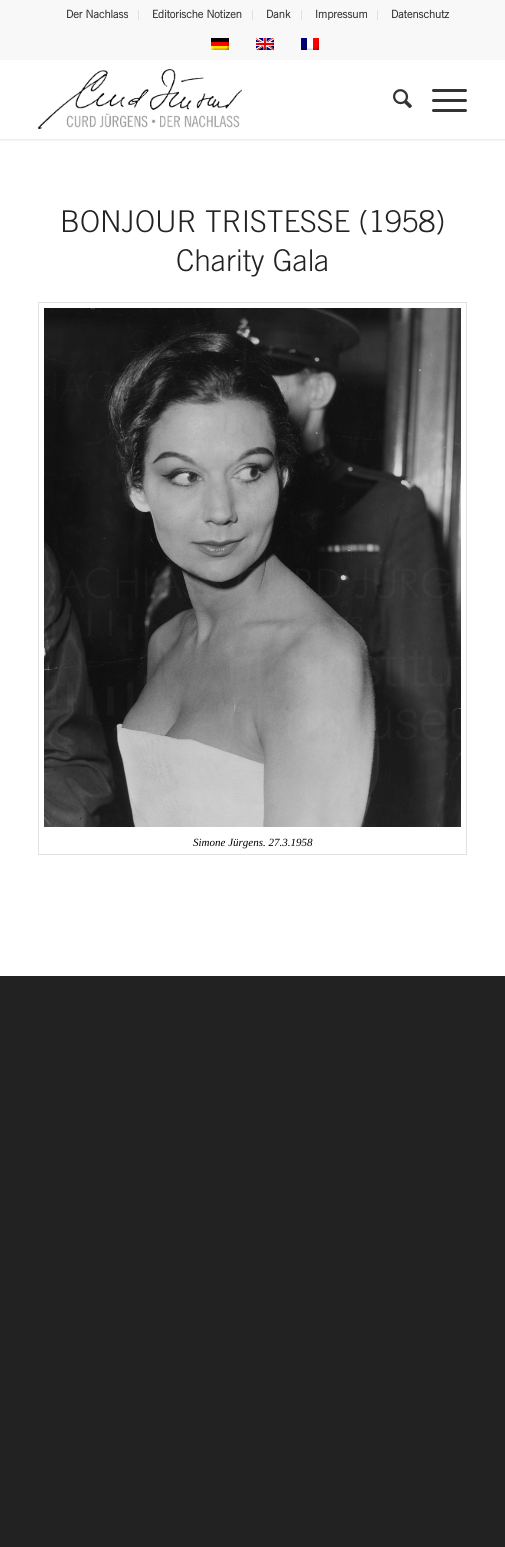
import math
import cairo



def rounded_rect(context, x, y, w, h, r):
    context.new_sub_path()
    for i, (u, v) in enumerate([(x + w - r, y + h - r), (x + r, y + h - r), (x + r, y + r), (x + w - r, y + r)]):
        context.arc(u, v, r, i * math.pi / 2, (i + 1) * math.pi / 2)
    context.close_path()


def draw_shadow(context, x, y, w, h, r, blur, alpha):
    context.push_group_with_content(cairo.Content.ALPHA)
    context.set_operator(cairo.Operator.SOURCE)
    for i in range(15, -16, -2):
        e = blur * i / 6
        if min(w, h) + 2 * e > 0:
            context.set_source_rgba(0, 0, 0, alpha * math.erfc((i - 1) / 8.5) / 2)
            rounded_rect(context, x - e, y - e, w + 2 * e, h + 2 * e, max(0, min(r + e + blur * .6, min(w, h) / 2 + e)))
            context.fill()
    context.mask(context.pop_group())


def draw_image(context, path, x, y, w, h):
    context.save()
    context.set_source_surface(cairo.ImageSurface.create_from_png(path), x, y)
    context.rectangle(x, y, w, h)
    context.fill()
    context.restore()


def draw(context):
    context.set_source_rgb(34 / 255, 34 / 255, 34 / 255)
    context.paint()
    context.set_source_rgb(1, 1, 1)
    context.rectangle(0, 60, 505, 916)
    context.fill()
    context.save()
    context.rectangle(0, 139, 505, 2)
    context.clip()
    context.set_source_rgb(0, 0, 0)
    draw_shadow(context, -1, -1, 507, 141, 0, 1, 0.1)
    context.restore()
    context.set_source_rgb(248 / 255, 248 / 255, 248 / 255)
    context.rectangle(0, 0, 505, 60)
    context.fill()
    context.set_source_rgb(225 / 255, 225 / 255, 225 / 255)
    context.rectangle(138, 10, 1, 10)
    context.fill()
    context.rectangle(252, 10, 1, 10)
    context.fill()
    context.rectangle(301, 10, 1, 10)
    context.fill()
    context.rectangle(377, 10, 1, 10)
    context.fill()
    draw_image(context, "images/1.png", 211, 38, 18, 12)
    draw_image(context, "images/2.png", 256, 38, 18, 12)
    draw_image(context, "images/3.png", 301, 38, 18, 12)
    draw_image(context, "images/4.png", 38, 69, 204, 60)
    draw_image(context, "images/5.png", 393, 89, 19, 20)
    context.set_source_rgb(51 / 255, 51 / 255, 51 / 255)
    rounded_rect(context, 432, 99, 35, 3, 1.5)
    context.fill()
    rounded_rect(context, 432, 89, 35, 3, 1.5)
    context.fill()
    rounded_rect(context, 432, 109, 35, 3, 1.5)
    context.fill()
    context.rectangle(38.5, 302.5, 428, 552)
    context.set_source_rgb(225 / 255, 225 / 255, 225 / 255)
    context.set_line_width(1)
    context.stroke()
    draw_image(context, "images/6.png", 44, 308, 417, 519)
    context.select_font_face("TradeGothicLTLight", cairo.FontSlant.NORMAL, cairo.FontWeight.BOLD)
    context.set_font_size(11)
    context.set_source_rgb(51 / 255, 51 / 255, 51 / 255)
    context.move_to(66, 18)
    context.show_text("Der Nachlass")
    context.move_to(152, 18)
    context.show_text("Editorische Notizen")
    context.move_to(266, 18)
    context.show_text("Dank")
    context.move_to(315, 18)
    context.show_text("Impressum")
    context.move_to(391, 18)
    context.show_text("Datenschutz")
    context.select_font_face("TradeGothicLTLight")
    context.set_font_size(30)
    context.set_source_rgb(34 / 255, 34 / 255, 34 / 255)
    context.move_to(60, 232)
    context.show_text("BONJOUR TRISTESSE (1958)")
    context.move_to(176, 271)
    context.show_text("Charity Gala")
    context.select_font_face("Liberation Serif", cairo.FontSlant.ITALIC)
    context.set_font_size(11)
    context.set_source_rgb(0, 0, 0)
    context.move_to(193, 846)
    context.show_text("Simone Jürgens. 27.3.1958")


surface = cairo.ImageSurface(cairo.Format.RGB24, 505, 1547)
context = cairo.Context(surface)
options = cairo.FontOptions()
options.set_hint_metrics(cairo.HintMetrics.OFF)
options.set_hint_style(cairo.HintStyle.NONE)
context.set_font_options(options)
context.set_miter_limit(4)
draw(context)
surface.write_to_png("out.png")
